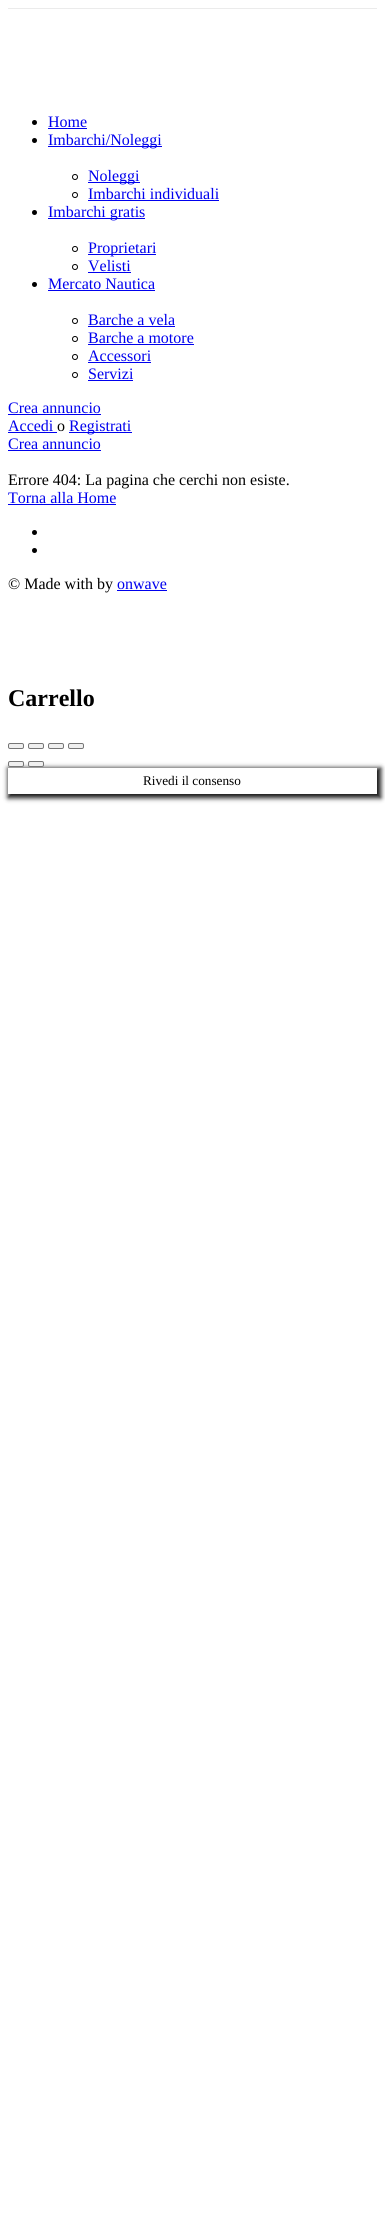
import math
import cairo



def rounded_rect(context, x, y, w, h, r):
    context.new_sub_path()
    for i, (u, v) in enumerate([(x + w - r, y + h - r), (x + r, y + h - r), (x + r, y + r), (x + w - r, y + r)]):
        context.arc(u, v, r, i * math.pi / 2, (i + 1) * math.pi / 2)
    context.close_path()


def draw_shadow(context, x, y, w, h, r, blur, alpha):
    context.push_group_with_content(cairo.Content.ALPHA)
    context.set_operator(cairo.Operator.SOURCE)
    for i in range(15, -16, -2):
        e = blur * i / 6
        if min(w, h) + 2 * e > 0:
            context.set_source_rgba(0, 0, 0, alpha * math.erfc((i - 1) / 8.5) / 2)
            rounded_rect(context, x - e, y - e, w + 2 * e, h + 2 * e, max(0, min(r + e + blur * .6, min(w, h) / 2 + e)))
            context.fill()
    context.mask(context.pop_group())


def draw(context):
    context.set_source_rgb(1, 1, 1)
    context.paint()
    context.set_source_rgb(235 / 255, 235 / 255, 235 / 255)
    context.rectangle(8, 8, 369, 1)
    context.fill()
    context.set_source_rgb(0, 0, 0)
    context.arc(34.5, 122.5, 2.5, 0, 2 * math.pi)
    context.fill()
    context.set_source_rgb(0, 0, 238 / 255)
    context.rectangle(48, 128, 39, 1)
    context.fill()
    context.set_source_rgb(0, 0, 0)
    context.arc(34.5, 140.5, 2.5, 0, 2 * math.pi)
    context.fill()
    context.set_source_rgb(0, 0, 238 / 255)
    context.rectangle(48, 146, 114, 1)
    context.fill()
    context.arc(75, 177, 2.5, 0, 2 * math.pi)
    context.set_source_rgb(0, 0, 0)
    context.set_line_width(1)
    context.stroke()
    context.set_source_rgb(0, 0, 238 / 255)
    context.rectangle(88, 182, 52, 1)
    context.fill()
    context.arc(75, 195, 2.5, 0, 2 * math.pi)
    context.set_source_rgb(0, 0, 0)
    context.stroke()
    context.set_source_rgb(0, 0, 238 / 255)
    context.rectangle(88, 200, 131, 1)
    context.fill()
    context.set_source_rgb(0, 0, 0)
    context.arc(34.5, 212.5, 2.5, 0, 2 * math.pi)
    context.fill()
    context.set_source_rgb(0, 0, 238 / 255)
    context.rectangle(48, 218, 97, 1)
    context.fill()
    context.arc(75, 249, 2.5, 0, 2 * math.pi)
    context.set_source_rgb(0, 0, 0)
    context.stroke()
    context.set_source_rgb(0, 0, 238 / 255)
    context.rectangle(88, 254, 68, 1)
    context.fill()
    context.arc(75, 267, 2.5, 0, 2 * math.pi)
    context.set_source_rgb(0, 0, 0)
    context.stroke()
    context.set_source_rgb(0, 0, 238 / 255)
    context.rectangle(88, 272, 43, 1)
    context.fill()
    context.set_source_rgb(0, 0, 0)
    context.arc(34.5, 284.5, 2.5, 0, 2 * math.pi)
    context.fill()
    context.set_source_rgb(0, 0, 238 / 255)
    context.rectangle(48, 290, 107, 1)
    context.fill()
    context.arc(75, 321, 2.5, 0, 2 * math.pi)
    context.set_source_rgb(0, 0, 0)
    context.stroke()
    context.set_source_rgb(0, 0, 238 / 255)
    context.rectangle(88, 326, 87, 1)
    context.fill()
    context.arc(75, 339, 2.5, 0, 2 * math.pi)
    context.set_source_rgb(0, 0, 0)
    context.stroke()
    context.set_source_rgb(0, 0, 238 / 255)
    context.rectangle(88, 344, 106, 1)
    context.fill()
    context.arc(75, 357, 2.5, 0, 2 * math.pi)
    context.set_source_rgb(0, 0, 0)
    context.stroke()
    context.set_source_rgb(0, 0, 238 / 255)
    context.rectangle(88, 362, 63, 1)
    context.fill()
    context.arc(75, 375, 2.5, 0, 2 * math.pi)
    context.set_source_rgb(0, 0, 0)
    context.stroke()
    context.set_source_rgb(0, 0, 238 / 255)
    context.rectangle(88, 380, 45, 1)
    context.fill()
    context.rectangle(8, 414, 93, 1)
    context.fill()
    context.rectangle(8, 432, 49, 1)
    context.fill()
    context.rectangle(69, 432, 63, 1)
    context.fill()
    context.rectangle(8, 450, 93, 1)
    context.fill()
    context.rectangle(8, 504, 108, 1)
    context.fill()
    context.set_source_rgb(0, 0, 0)
    context.arc(34.5, 532.5, 2.5, 0, 2 * math.pi)
    context.fill()
    context.arc(34.5, 550.5, 2.5, 0, 2 * math.pi)
    context.fill()
    context.set_source_rgb(0, 0, 238 / 255)
    context.rectangle(117, 590, 50, 1)
    context.fill()
    context.set_source_rgb(239 / 255, 239 / 255, 239 / 255)
    rounded_rect(context, 8.5, 743.5, 15, 5, 1.5)
    context.fill_preserve()
    context.set_source_rgb(118 / 255, 118 / 255, 118 / 255)
    context.stroke()
    context.set_source_rgb(239 / 255, 239 / 255, 239 / 255)
    rounded_rect(context, 28.5, 743.5, 15, 5, 1.5)
    context.fill_preserve()
    context.set_source_rgb(118 / 255, 118 / 255, 118 / 255)
    context.stroke()
    context.set_source_rgb(239 / 255, 239 / 255, 239 / 255)
    rounded_rect(context, 48.5, 743.5, 15, 5, 1.5)
    context.fill_preserve()
    context.set_source_rgb(118 / 255, 118 / 255, 118 / 255)
    context.stroke()
    context.set_source_rgb(239 / 255, 239 / 255, 239 / 255)
    rounded_rect(context, 68.5, 743.5, 15, 5, 1.5)
    context.fill_preserve()
    context.set_source_rgb(118 / 255, 118 / 255, 118 / 255)
    context.stroke()
    context.save()
    context.set_fill_rule(cairo.FillRule.EVEN_ODD)
    context.new_path()
    context.move_to(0, 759)
    context.line_to(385, 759)
    context.line_to(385, 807)
    context.line_to(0, 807)
    context.close_path()
    context.move_to(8, 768)
    context.line_to(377, 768)
    context.line_to(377, 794)
    context.line_to(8, 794)
    context.close_path()
    context.clip()
    context.set_source_rgb(22 / 255, 22 / 255, 22 / 255)
    draw_shadow(context, 8, 768, 373, 30, 0, 2.5, 1)
    context.restore()
    context.set_source_rgb(239 / 255, 239 / 255, 239 / 255)
    rounded_rect(context, 8.5, 761.5, 15, 5, 1.5)
    context.fill_preserve()
    context.set_source_rgb(118 / 255, 118 / 255, 118 / 255)
    context.stroke()
    context.set_source_rgb(239 / 255, 239 / 255, 239 / 255)
    rounded_rect(context, 28.5, 761.5, 15, 5, 1.5)
    context.fill_preserve()
    context.set_source_rgb(118 / 255, 118 / 255, 118 / 255)
    context.stroke()
    context.select_font_face("Liberation Serif")
    context.set_font_size(16)
    context.set_source_rgb(0, 0, 238 / 255)
    context.move_to(48, 127)
    context.show_text("Home")
    context.move_to(48, 145)
    context.show_text("Imbarchi/Noleggi")
    context.move_to(88, 181)
    context.show_text("Noleggi")
    context.move_to(88, 199)
    context.show_text("Imbarchi individuali")
    context.move_to(48, 217)
    context.show_text("Imbarchi gratis")
    context.move_to(88, 253)
    context.show_text("Proprietari")
    context.move_to(88, 271)
    context.show_text("Velisti")
    context.move_to(48, 289)
    context.show_text("Mercato Nautica")
    context.move_to(88, 325)
    context.show_text("Barche a vela")
    context.move_to(88, 343)
    context.show_text("Barche a motore")
    context.move_to(88, 361)
    context.show_text("Accessori")
    context.move_to(88, 379)
    context.show_text("Servizi")
    context.move_to(8, 413)
    context.show_text("Crea annuncio")
    context.move_to(8, 431)
    context.show_text("Accedi")
    context.set_source_rgb(0, 0, 0)
    context.move_to(57, 431)
    context.show_text("o")
    context.set_source_rgb(0, 0, 238 / 255)
    context.move_to(69, 431)
    context.show_text("Registrati")
    context.move_to(8, 449)
    context.show_text("Crea annuncio")
    context.set_source_rgb(0, 0, 0)
    context.move_to(8, 485)
    context.show_text("Errore 404: La pagina che cerchi non esiste.")
    context.set_source_rgb(0, 0, 238 / 255)
    context.move_to(8, 503)
    context.show_text("Torna alla Home")
    context.set_source_rgb(0, 0, 0)
    context.move_to(8, 589)
    context.show_text("© Made with by")
    context.set_source_rgb(0, 0, 238 / 255)
    context.move_to(117, 589)
    context.show_text("onwave")
    context.select_font_face("Liberation Serif", cairo.FontSlant.NORMAL, cairo.FontWeight.BOLD)
    context.set_font_size(24)
    context.set_source_rgb(0, 0, 0)
    context.move_to(8, 706)
    context.show_text("Carrello")
    context.select_font_face("Liberation Serif")
    context.set_font_size(13.25)
    context.move_to(143, 785)
    context.show_text("Rivedi il consenso")


surface = cairo.ImageSurface(cairo.Format.RGB24, 385, 2231)
context = cairo.Context(surface)
options = cairo.FontOptions()
options.set_hint_metrics(cairo.HintMetrics.OFF)
options.set_hint_style(cairo.HintStyle.NONE)
context.set_font_options(options)
context.set_miter_limit(4)
draw(context)
surface.write_to_png("out.png")
